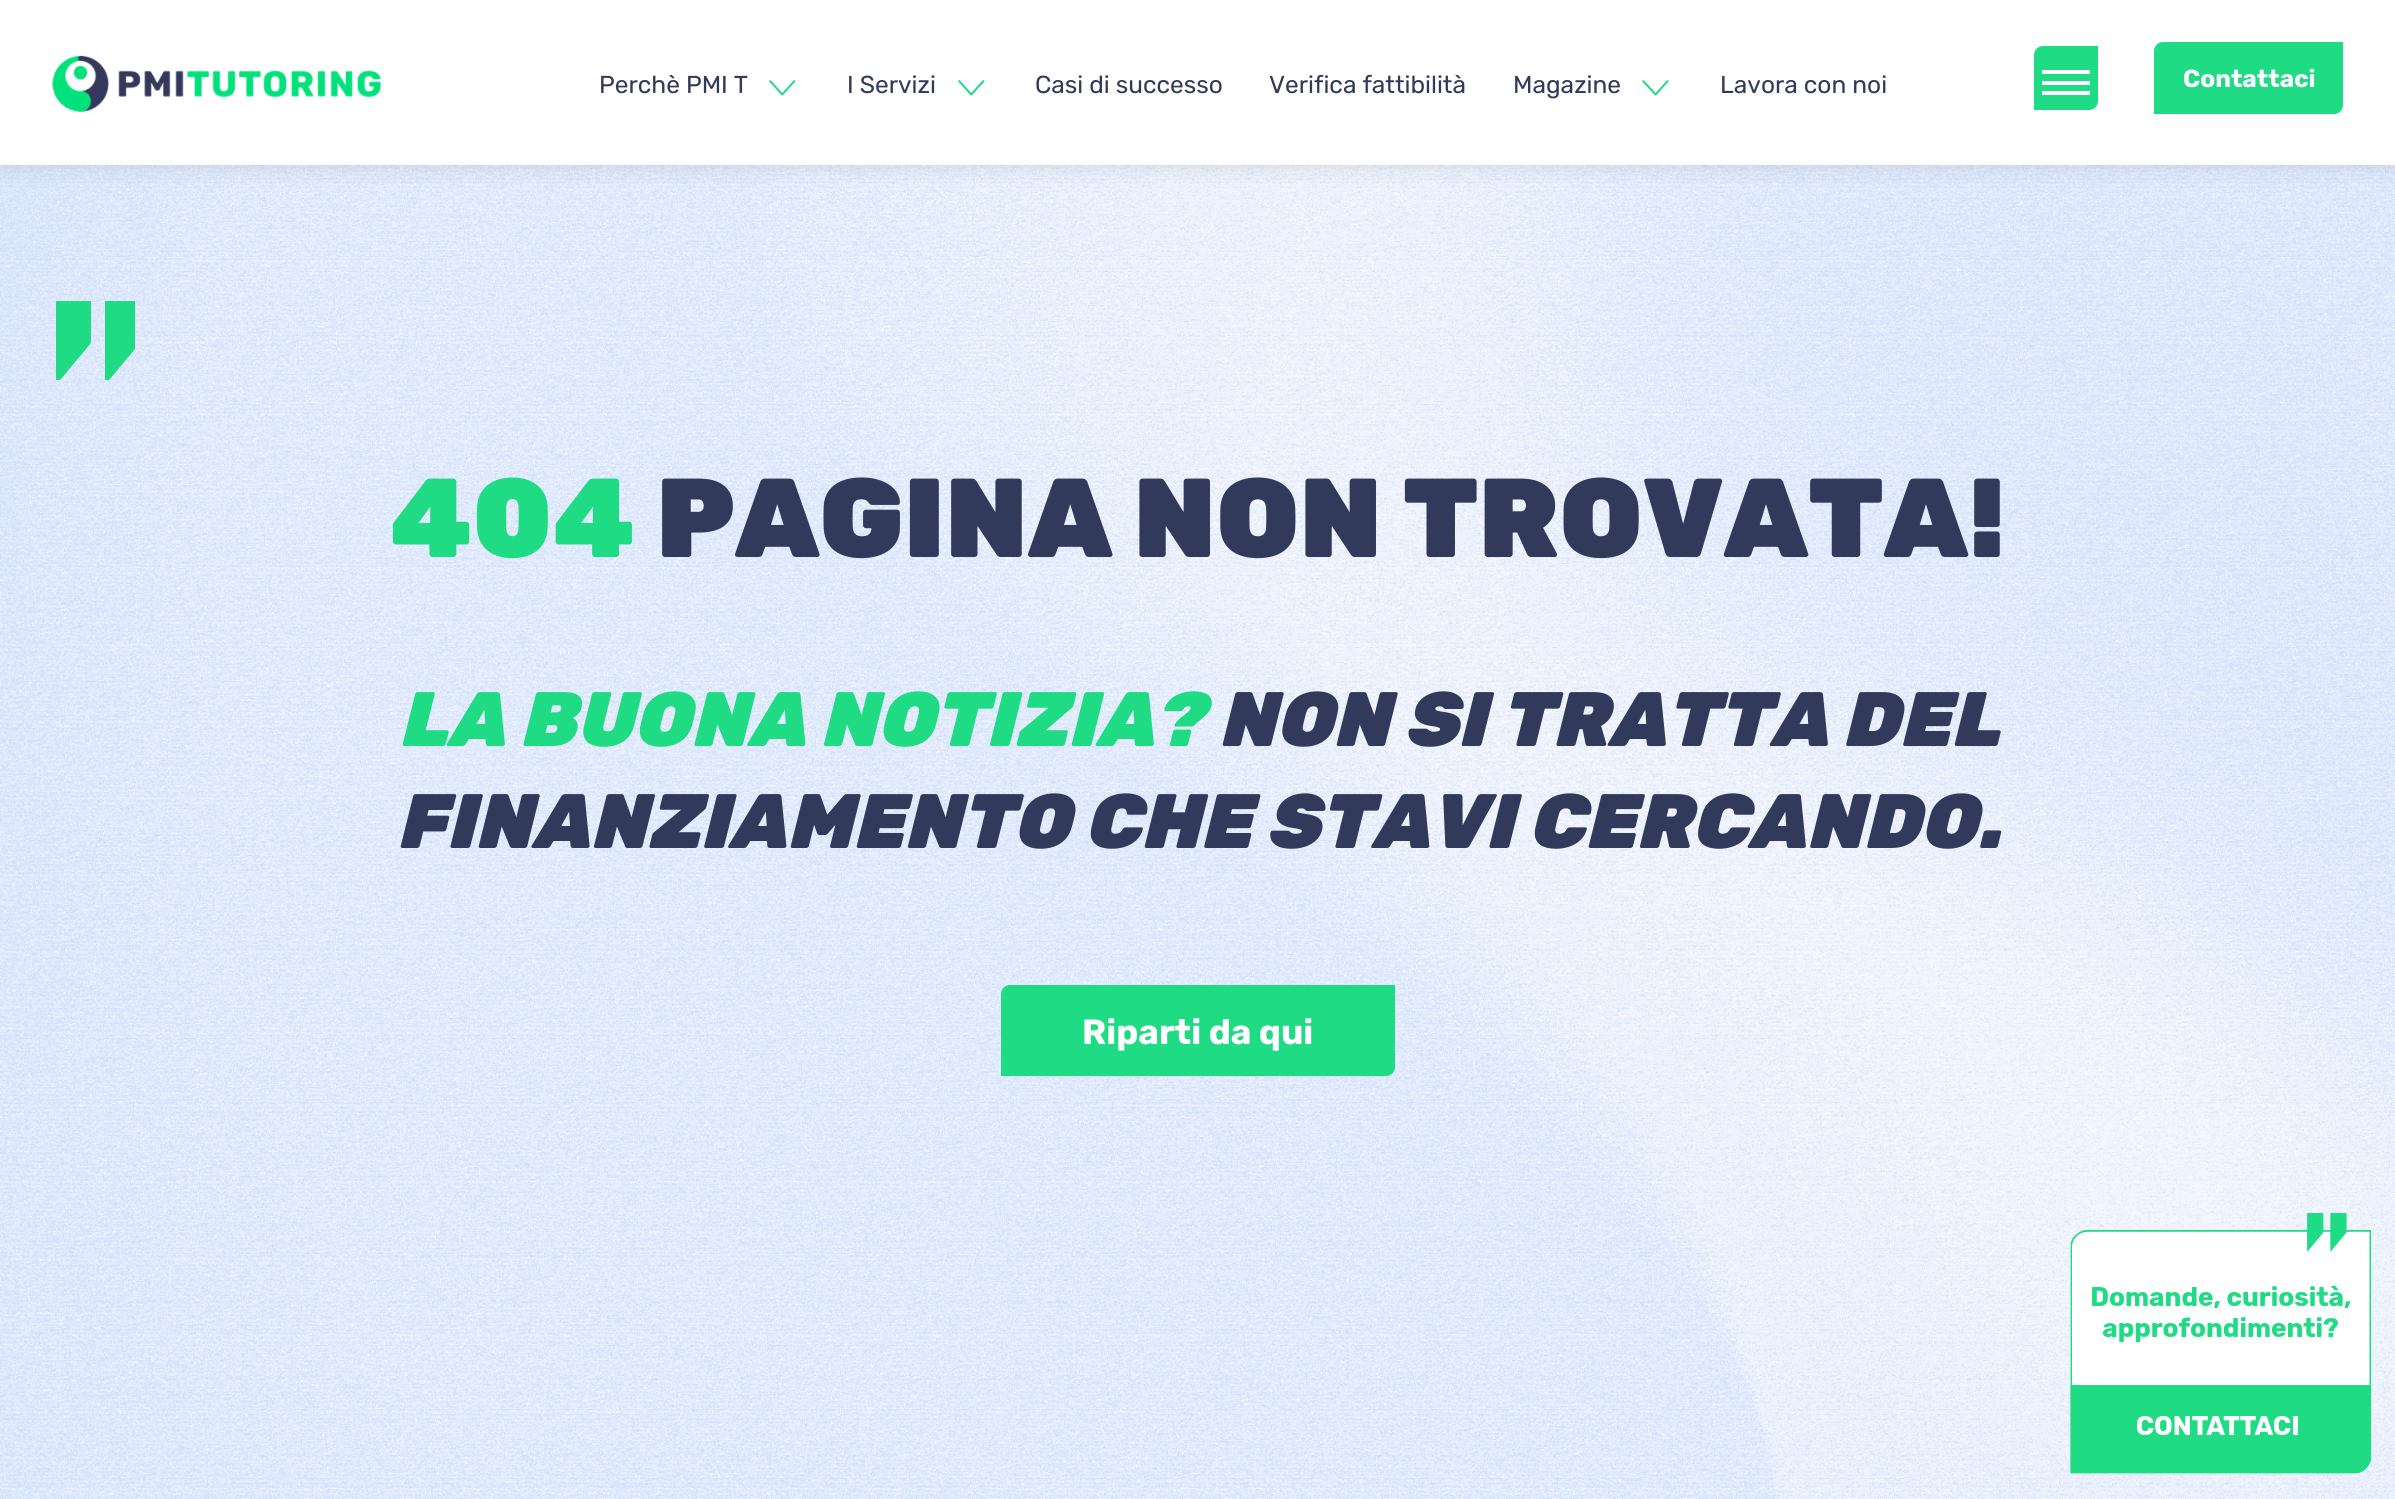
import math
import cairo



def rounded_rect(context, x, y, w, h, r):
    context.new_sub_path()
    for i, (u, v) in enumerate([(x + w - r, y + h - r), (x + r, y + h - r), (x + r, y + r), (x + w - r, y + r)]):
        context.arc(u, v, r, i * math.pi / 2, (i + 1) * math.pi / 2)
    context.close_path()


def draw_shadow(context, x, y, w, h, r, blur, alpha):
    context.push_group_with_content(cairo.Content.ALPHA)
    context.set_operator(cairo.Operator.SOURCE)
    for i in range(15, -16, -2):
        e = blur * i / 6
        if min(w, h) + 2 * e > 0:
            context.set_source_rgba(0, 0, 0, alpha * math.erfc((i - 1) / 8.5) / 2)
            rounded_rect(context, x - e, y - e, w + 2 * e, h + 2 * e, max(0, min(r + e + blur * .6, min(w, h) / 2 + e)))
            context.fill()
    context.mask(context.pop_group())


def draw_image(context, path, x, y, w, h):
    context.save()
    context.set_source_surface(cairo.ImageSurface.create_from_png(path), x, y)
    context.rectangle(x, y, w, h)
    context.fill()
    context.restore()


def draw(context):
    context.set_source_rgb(247 / 255, 247 / 255, 247 / 255)
    context.paint()
    draw_image(context, "images/4.png", 0, 165, 2395, 1334)
    context.set_source_rgb(0, 0, 0)
    draw_shadow(context, 0, 4, 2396, 164, 0, 10.5, 0.1)
    context.set_source_rgb(1, 1, 1)
    context.rectangle(0, 0, 2395, 165)
    context.fill()
    draw_image(context, "images/1.png", 52, 55, 329, 57)
    draw_image(context, "images/2.png", 769, 80, 27, 16)
    draw_image(context, "images/2.png", 958, 80, 27, 16)
    draw_image(context, "images/3.png", 1642, 80, 27, 16)
    context.set_source_rgb(31 / 255, 219 / 255, 132 / 255)
    context.new_path()
    context.move_to(2043, 46)
    context.line_to(2098, 46)
    context.line_to(2098, 101)
    context.curve_to(2098, 106, 2094, 110, 2089, 110)
    context.line_to(2034, 110)
    context.line_to(2034, 55)
    context.curve_to(2034, 50, 2038, 46, 2043, 46)
    context.close_path()
    context.fill()
    context.set_source_rgb(1, 1, 1)
    context.rectangle(2042, 70, 48, 4)
    context.fill()
    context.rectangle(2042, 81, 48, 4)
    context.fill()
    context.rectangle(2042, 91, 48, 4)
    context.fill()
    context.set_source_rgb(31 / 255, 219 / 255, 132 / 255)
    context.new_path()
    context.move_to(2163, 43)
    context.line_to(2342, 43)
    context.line_to(2342, 105)
    context.curve_to(2342, 109.5, 2338.5, 113, 2334, 113)
    context.line_to(2155, 113)
    context.line_to(2155, 51)
    context.curve_to(2155, 46.5, 2158.5, 43, 2163, 43)
    context.close_path()
    context.fill_preserve()
    context.stroke()
    context.save()
    context.rectangle(56, 301, 79, 79)
    context.clip()
    context.set_fill_rule(cairo.FillRule.EVEN_ODD)
    context.new_path()
    context.move_to(56, 301)
    context.line_to(91, 301)
    context.line_to(91, 343)
    context.line_to(56, 385)
    context.line_to(56, 343)
    context.close_path()
    context.move_to(105, 301)
    context.line_to(140, 301)
    context.line_to(140, 343)
    context.line_to(105, 385)
    context.line_to(105, 343)
    context.close_path()
    context.fill()
    context.restore()
    context.new_path()
    context.move_to(1010, 986)
    context.line_to(1394, 986)
    context.line_to(1394, 1067)
    context.curve_to(1394, 1071.5, 1390.5, 1075, 1386, 1075)
    context.line_to(1002, 1075)
    context.line_to(1002, 994)
    context.curve_to(1002, 989.5, 1005.5, 986, 1010, 986)
    context.close_path()
    context.fill_preserve()
    context.stroke()
    draw_image(context, "images/5.png", 2070, 1213, 301, 261)
    context.select_font_face("Rubik")
    context.set_font_size(24.5)
    context.set_source_rgb(49 / 255, 58 / 255, 90 / 255)
    context.move_to(599, 93)
    context.show_text("Perchè PMI T")
    context.move_to(847, 93)
    context.show_text("I Servizi")
    context.move_to(1035, 93)
    context.show_text("Casi di successo")
    context.move_to(1269, 93)
    context.show_text("Verifica fattibilità")
    context.move_to(1513, 93)
    context.show_text("Magazine")
    context.move_to(1720, 93)
    context.show_text("Lavora con noi")
    context.select_font_face("Rubik", cairo.FontSlant.NORMAL, cairo.FontWeight.BOLD)
    context.set_source_rgb(1, 1, 1)
    context.move_to(2183, 87)
    context.show_text("Contattaci")
    context.select_font_face("Rubik Black")
    context.set_font_size(112)
    context.set_source_rgb(31 / 255, 219 / 255, 132 / 255)
    context.move_to(390, 557)
    context.show_text("404")
    context.set_source_rgb(49 / 255, 58 / 255, 90 / 255)
    context.move_to(656, 557)
    context.show_text("PAGINA NON TROVATA!")
    context.select_font_face("Rubik Black", cairo.FontSlant.ITALIC)
    context.set_font_size(77)
    context.set_source_rgb(31 / 255, 219 / 255, 132 / 255)
    context.move_to(398, 746)
    context.show_text("LA BUONA NOTIZIA?")
    context.set_source_rgb(49 / 255, 58 / 255, 90 / 255)
    context.move_to(1218, 746)
    context.show_text("NON SI TRATTA DEL")
    context.move_to(396, 848)
    context.show_text("FINANZIAMENTO CHE STAVI CERCANDO.")
    context.select_font_face("Rubik", cairo.FontSlant.NORMAL, cairo.FontWeight.BOLD)
    context.set_font_size(35)
    context.set_source_rgb(1, 1, 1)
    context.move_to(1082, 1044)
    context.show_text("Riparti da qui")


surface = cairo.ImageSurface(cairo.Format.RGB24, 2395, 1499)
context = cairo.Context(surface)
options = cairo.FontOptions()
options.set_hint_metrics(cairo.HintMetrics.OFF)
options.set_hint_style(cairo.HintStyle.NONE)
context.set_font_options(options)
context.set_miter_limit(4)
draw(context)
surface.write_to_png("out.png")
